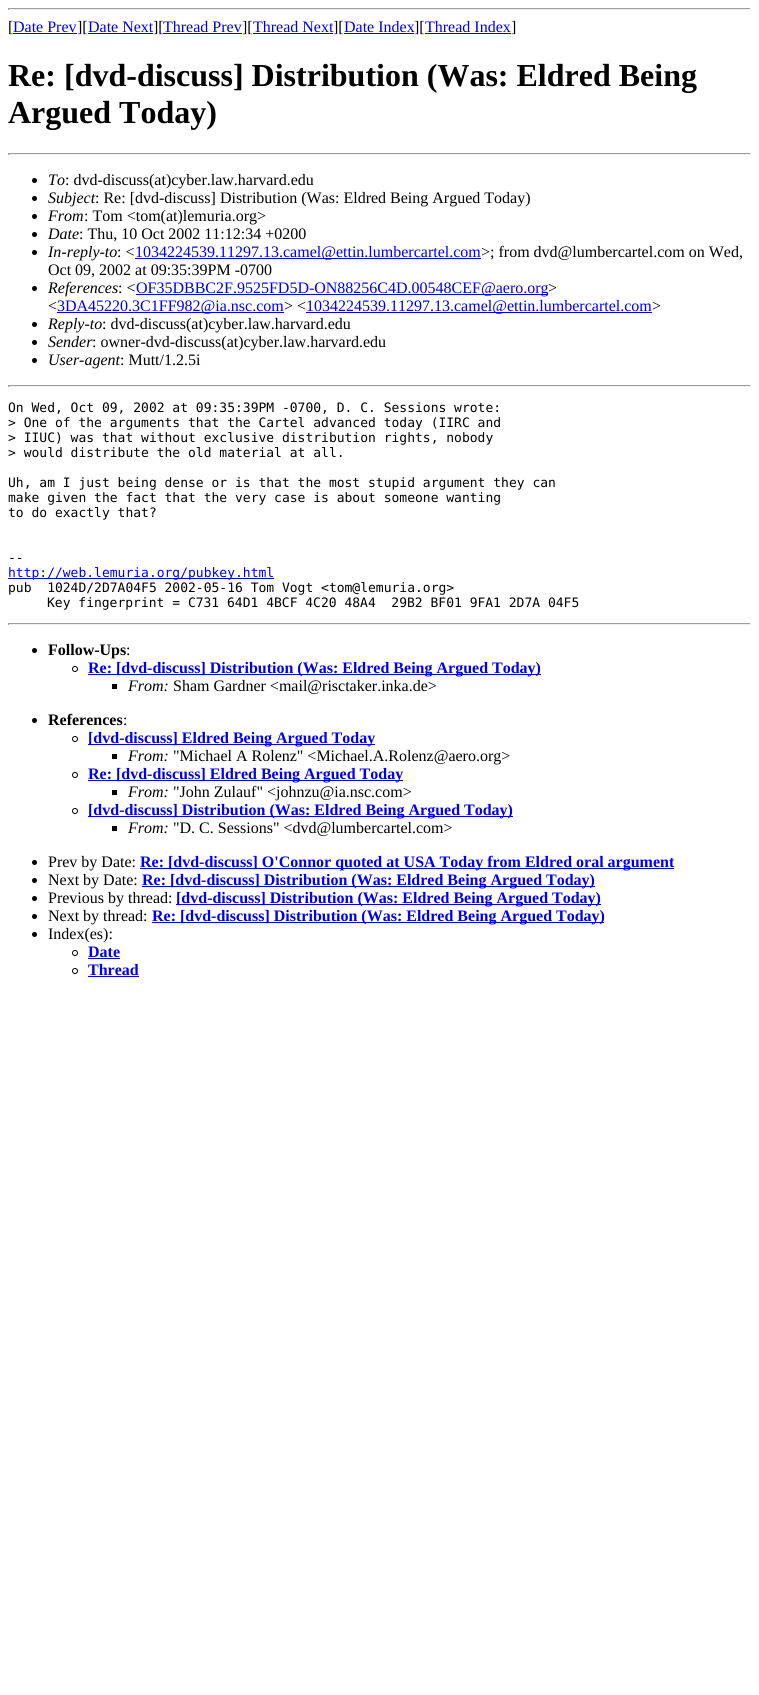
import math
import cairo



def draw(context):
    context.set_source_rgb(1, 1, 1)
    context.paint()
    context.set_source_rgb(159 / 255, 159 / 255, 159 / 255)
    context.rectangle(8, 8, 743, 1)
    context.fill()
    context.set_source_rgb(238 / 255, 238 / 255, 238 / 255)
    context.rectangle(750, 8, 1, 2)
    context.fill()
    context.rectangle(8, 9, 743, 1)
    context.fill()
    context.set_source_rgb(159 / 255, 159 / 255, 159 / 255)
    context.rectangle(8, 8, 1, 2)
    context.fill()
    context.set_source_rgb(0, 0, 238 / 255)
    context.rectangle(13, 33, 64, 1)
    context.fill()
    context.rectangle(88, 33, 65, 1)
    context.fill()
    context.rectangle(163, 33, 79, 1)
    context.fill()
    context.rectangle(253, 33, 80, 1)
    context.fill()
    context.rectangle(344, 33, 70, 1)
    context.fill()
    context.rectangle(425, 33, 86, 1)
    context.fill()
    context.set_source_rgb(159 / 255, 159 / 255, 159 / 255)
    context.rectangle(8, 153, 743, 1)
    context.fill()
    context.set_source_rgb(238 / 255, 238 / 255, 238 / 255)
    context.rectangle(750, 153, 1, 2)
    context.fill()
    context.rectangle(8, 154, 743, 1)
    context.fill()
    context.set_source_rgb(159 / 255, 159 / 255, 159 / 255)
    context.rectangle(8, 153, 1, 2)
    context.fill()
    context.set_source_rgb(0, 0, 0)
    context.arc(34.5, 180.5, 2.5, 0, 2 * math.pi)
    context.fill()
    context.arc(34.5, 198.5, 2.5, 0, 2 * math.pi)
    context.fill()
    context.arc(34.5, 216.5, 2.5, 0, 2 * math.pi)
    context.fill()
    context.arc(34.5, 234.5, 2.5, 0, 2 * math.pi)
    context.fill()
    context.arc(34.5, 252.5, 2.5, 0, 2 * math.pi)
    context.fill()
    context.set_source_rgb(0, 0, 238 / 255)
    context.rectangle(135, 258, 346, 1)
    context.fill()
    context.set_source_rgb(0, 0, 0)
    context.arc(34.5, 288.5, 2.5, 0, 2 * math.pi)
    context.fill()
    context.set_source_rgb(0, 0, 238 / 255)
    context.rectangle(136, 294, 412, 1)
    context.fill()
    context.rectangle(57, 312, 227, 1)
    context.fill()
    context.rectangle(306, 312, 346, 1)
    context.fill()
    context.set_source_rgb(0, 0, 0)
    context.arc(34.5, 324.5, 2.5, 0, 2 * math.pi)
    context.fill()
    context.arc(34.5, 342.5, 2.5, 0, 2 * math.pi)
    context.fill()
    context.arc(34.5, 360.5, 2.5, 0, 2 * math.pi)
    context.fill()
    context.set_source_rgb(159 / 255, 159 / 255, 159 / 255)
    context.rectangle(8, 385, 743, 1)
    context.fill()
    context.set_source_rgb(238 / 255, 238 / 255, 238 / 255)
    context.rectangle(750, 385, 1, 2)
    context.fill()
    context.rectangle(8, 386, 743, 1)
    context.fill()
    context.set_source_rgb(159 / 255, 159 / 255, 159 / 255)
    context.rectangle(8, 385, 1, 2)
    context.fill()
    context.set_source_rgb(0, 0, 238 / 255)
    context.rectangle(8, 578, 266, 1)
    context.fill()
    context.set_source_rgb(159 / 255, 159 / 255, 159 / 255)
    context.rectangle(8, 623, 743, 1)
    context.fill()
    context.set_source_rgb(238 / 255, 238 / 255, 238 / 255)
    context.rectangle(750, 623, 1, 2)
    context.fill()
    context.rectangle(8, 624, 743, 1)
    context.fill()
    context.set_source_rgb(159 / 255, 159 / 255, 159 / 255)
    context.rectangle(8, 623, 1, 2)
    context.fill()
    context.set_source_rgb(0, 0, 0)
    context.arc(34.5, 650.5, 2.5, 0, 2 * math.pi)
    context.fill()
    context.arc(75, 669, 2.5, 0, 2 * math.pi)
    context.set_line_width(1)
    context.stroke()
    context.set_source_rgb(0, 0, 238 / 255)
    context.rectangle(88, 674, 453, 1)
    context.fill()
    context.set_source_rgb(0, 0, 0)
    context.rectangle(112, 684, 5, 5)
    context.fill()
    context.arc(34.5, 720.5, 2.5, 0, 2 * math.pi)
    context.fill()
    context.arc(75, 739, 2.5, 0, 2 * math.pi)
    context.stroke()
    context.set_source_rgb(0, 0, 238 / 255)
    context.rectangle(88, 744, 287, 1)
    context.fill()
    context.set_source_rgb(0, 0, 0)
    context.rectangle(112, 754, 5, 5)
    context.fill()
    context.arc(75, 775, 2.5, 0, 2 * math.pi)
    context.stroke()
    context.set_source_rgb(0, 0, 238 / 255)
    context.rectangle(88, 780, 315, 1)
    context.fill()
    context.set_source_rgb(0, 0, 0)
    context.rectangle(112, 790, 5, 5)
    context.fill()
    context.arc(75, 811, 2.5, 0, 2 * math.pi)
    context.stroke()
    context.set_source_rgb(0, 0, 238 / 255)
    context.rectangle(88, 816, 425, 1)
    context.fill()
    context.set_source_rgb(0, 0, 0)
    context.rectangle(112, 826, 5, 5)
    context.fill()
    context.arc(34.5, 862.5, 2.5, 0, 2 * math.pi)
    context.fill()
    context.set_source_rgb(0, 0, 238 / 255)
    context.rectangle(140, 868, 534, 1)
    context.fill()
    context.set_source_rgb(0, 0, 0)
    context.arc(34.5, 880.5, 2.5, 0, 2 * math.pi)
    context.fill()
    context.set_source_rgb(0, 0, 238 / 255)
    context.rectangle(142, 886, 453, 1)
    context.fill()
    context.set_source_rgb(0, 0, 0)
    context.arc(34.5, 898.5, 2.5, 0, 2 * math.pi)
    context.fill()
    context.set_source_rgb(0, 0, 238 / 255)
    context.rectangle(176, 904, 425, 1)
    context.fill()
    context.set_source_rgb(0, 0, 0)
    context.arc(34.5, 916.5, 2.5, 0, 2 * math.pi)
    context.fill()
    context.set_source_rgb(0, 0, 238 / 255)
    context.rectangle(152, 922, 452, 1)
    context.fill()
    context.set_source_rgb(0, 0, 0)
    context.arc(34.5, 934.5, 2.5, 0, 2 * math.pi)
    context.fill()
    context.arc(75, 953, 2.5, 0, 2 * math.pi)
    context.stroke()
    context.set_source_rgb(0, 0, 238 / 255)
    context.rectangle(88, 958, 32, 1)
    context.fill()
    context.arc(75, 971, 2.5, 0, 2 * math.pi)
    context.set_source_rgb(0, 0, 0)
    context.stroke()
    context.set_source_rgb(0, 0, 238 / 255)
    context.rectangle(88, 976, 51, 1)
    context.fill()
    context.select_font_face("Liberation Serif")
    context.set_font_size(16)
    context.set_source_rgb(0, 0, 0)
    context.move_to(8, 32)
    context.show_text("[")
    context.set_source_rgb(0, 0, 238 / 255)
    context.move_to(13, 32)
    context.show_text("Date Prev")
    context.set_source_rgb(0, 0, 0)
    context.move_to(77, 32)
    context.show_text("][")
    context.set_source_rgb(0, 0, 238 / 255)
    context.move_to(88, 32)
    context.show_text("Date Next")
    context.set_source_rgb(0, 0, 0)
    context.move_to(153, 32)
    context.show_text("][")
    context.set_source_rgb(0, 0, 238 / 255)
    context.move_to(163, 32)
    context.show_text("Thread Prev")
    context.set_source_rgb(0, 0, 0)
    context.move_to(242, 32)
    context.show_text("][")
    context.set_source_rgb(0, 0, 238 / 255)
    context.move_to(253, 32)
    context.show_text("Thread Next")
    context.set_source_rgb(0, 0, 0)
    context.move_to(333, 32)
    context.show_text("][")
    context.set_source_rgb(0, 0, 238 / 255)
    context.move_to(344, 32)
    context.show_text("Date Index")
    context.set_source_rgb(0, 0, 0)
    context.move_to(414, 32)
    context.show_text("][")
    context.set_source_rgb(0, 0, 238 / 255)
    context.move_to(425, 32)
    context.show_text("Thread Index")
    context.set_source_rgb(0, 0, 0)
    context.move_to(511, 32)
    context.show_text("]")
    context.select_font_face("Liberation Serif", cairo.FontSlant.NORMAL, cairo.FontWeight.BOLD)
    context.set_font_size(32)
    context.move_to(8, 86)
    context.show_text("Re: [dvd-discuss] Distribution (Was: Eldred Being")
    context.move_to(8, 123)
    context.show_text("Argued Today)")
    context.select_font_face("Liberation Serif", cairo.FontSlant.ITALIC)
    context.set_font_size(16)
    context.move_to(48, 185)
    context.show_text("To")
    context.select_font_face("Liberation Serif")
    context.move_to(65, 185)
    context.show_text(": dvd-discuss(at)cyber.law.harvard.edu")
    context.select_font_face("Liberation Serif", cairo.FontSlant.ITALIC)
    context.move_to(48, 203)
    context.show_text("Subject")
    context.select_font_face("Liberation Serif")
    context.move_to(95, 203)
    context.show_text(": Re: [dvd-discuss] Distribution (Was: Eldred Being Argued Today)")
    context.select_font_face("Liberation Serif", cairo.FontSlant.ITALIC)
    context.move_to(48, 221)
    context.show_text("From")
    context.select_font_face("Liberation Serif")
    context.move_to(84, 221)
    context.show_text(": Tom <tom(at)lemuria.org>")
    context.select_font_face("Liberation Serif", cairo.FontSlant.ITALIC)
    context.move_to(48, 239)
    context.show_text("Date")
    context.select_font_face("Liberation Serif")
    context.move_to(79, 239)
    context.show_text(": Thu, 10 Oct 2002 11:12:34 +0200")
    context.select_font_face("Liberation Serif", cairo.FontSlant.ITALIC)
    context.move_to(48, 257)
    context.show_text("In-reply-to")
    context.select_font_face("Liberation Serif")
    context.move_to(117, 257)
    context.show_text(": <")
    context.set_source_rgb(0, 0, 238 / 255)
    context.move_to(135, 257)
    context.show_text("1034224539.11297.13.camel@ettin.lumbercartel.com")
    context.set_source_rgb(0, 0, 0)
    context.move_to(481, 257)
    context.show_text(">; from dvd@lumbercartel.com on Wed,")
    context.move_to(48, 275)
    context.show_text("Oct 09, 2002 at 09:35:39PM -0700")
    context.select_font_face("Liberation Serif", cairo.FontSlant.ITALIC)
    context.move_to(48, 293)
    context.show_text("References")
    context.select_font_face("Liberation Serif")
    context.move_to(118, 293)
    context.show_text(": <")
    context.set_source_rgb(0, 0, 238 / 255)
    context.move_to(136, 293)
    context.show_text("OF35DBBC2F.9525FD5D-ON88256C4D.00548CEF@aero.org")
    context.set_source_rgb(0, 0, 0)
    context.move_to(548, 293)
    context.show_text(">")
    context.move_to(48, 311)
    context.show_text("<")
    context.set_source_rgb(0, 0, 238 / 255)
    context.move_to(57, 311)
    context.show_text("3DA45220.3C1FF982@ia.nsc.com")
    context.set_source_rgb(0, 0, 0)
    context.move_to(284, 311)
    context.show_text("> <")
    context.set_source_rgb(0, 0, 238 / 255)
    context.move_to(306, 311)
    context.show_text("1034224539.11297.13.camel@ettin.lumbercartel.com")
    context.set_source_rgb(0, 0, 0)
    context.move_to(652, 311)
    context.show_text(">")
    context.select_font_face("Liberation Serif", cairo.FontSlant.ITALIC)
    context.move_to(48, 329)
    context.show_text("Reply-to")
    context.select_font_face("Liberation Serif")
    context.move_to(102, 329)
    context.show_text(": dvd-discuss(at)cyber.law.harvard.edu")
    context.select_font_face("Liberation Serif", cairo.FontSlant.ITALIC)
    context.move_to(48, 347)
    context.show_text("Sender")
    context.select_font_face("Liberation Serif")
    context.move_to(92, 347)
    context.show_text(": owner-dvd-discuss(at)cyber.law.harvard.edu")
    context.select_font_face("Liberation Serif", cairo.FontSlant.ITALIC)
    context.move_to(48, 365)
    context.show_text("User-agent")
    context.select_font_face("Liberation Serif")
    context.move_to(120, 365)
    context.show_text(": Mutt/1.2.5i")
    context.select_font_face("DejaVu Sans Mono")
    context.set_font_size(13)
    context.move_to(8, 412)
    context.show_text("On Wed, Oct 09, 2002 at 09:35:39PM -0700, D. C. Sessions wrote:")
    context.move_to(8, 427)
    context.show_text("> One of the arguments that the Cartel advanced today (IIRC and")
    context.move_to(8, 442)
    context.show_text("> IIUC) was that without exclusive distribution rights, nobody")
    context.move_to(8, 457)
    context.show_text("> would distribute the old material at all.")
    context.move_to(8, 487)
    context.show_text("Uh, am I just being dense or is that the most stupid argument they can")
    context.move_to(8, 502)
    context.show_text("make given the fact that the very case is about someone wanting")
    context.move_to(8, 517)
    context.show_text("to do exactly that?")
    context.move_to(8, 562)
    context.show_text("--")
    context.set_source_rgb(0, 0, 238 / 255)
    context.move_to(8, 577)
    context.show_text("http://web.lemuria.org/pubkey.html")
    context.set_source_rgb(0, 0, 0)
    context.move_to(8, 592)
    context.show_text("pub  1024D/2D7A04F5 2002-05-16 Tom Vogt <tom@lemuria.org>")
    context.move_to(47, 607)
    context.show_text("Key fingerprint = C731 64D1 4BCF 4C20 48A4  29B2 BF01 9FA1 2D7A 04F5")
    context.select_font_face("Liberation Serif", cairo.FontSlant.NORMAL, cairo.FontWeight.BOLD)
    context.set_font_size(16)
    context.move_to(48, 655)
    context.show_text("Follow-Ups")
    context.select_font_face("Liberation Serif")
    context.move_to(126, 655)
    context.show_text(":")
    context.select_font_face("Liberation Serif", cairo.FontSlant.NORMAL, cairo.FontWeight.BOLD)
    context.set_source_rgb(0, 0, 238 / 255)
    context.move_to(88, 673)
    context.show_text("Re: [dvd-discuss] Distribution (Was: Eldred Being Argued Today)")
    context.select_font_face("Liberation Serif", cairo.FontSlant.ITALIC)
    context.set_source_rgb(0, 0, 0)
    context.move_to(128, 691)
    context.show_text("From:")
    context.select_font_face("Liberation Serif")
    context.move_to(173, 691)
    context.show_text("Sham Gardner <mail@risctaker.inka.de>")
    context.select_font_face("Liberation Serif", cairo.FontSlant.NORMAL, cairo.FontWeight.BOLD)
    context.move_to(48, 725)
    context.show_text("References")
    context.select_font_face("Liberation Serif")
    context.move_to(123, 725)
    context.show_text(":")
    context.select_font_face("Liberation Serif", cairo.FontSlant.NORMAL, cairo.FontWeight.BOLD)
    context.set_source_rgb(0, 0, 238 / 255)
    context.move_to(88, 743)
    context.show_text("[dvd-discuss] Eldred Being Argued Today")
    context.select_font_face("Liberation Serif", cairo.FontSlant.ITALIC)
    context.set_source_rgb(0, 0, 0)
    context.move_to(128, 761)
    context.show_text("From:")
    context.select_font_face("Liberation Serif")
    context.move_to(173, 761)
    context.show_text("\"Michael A Rolenz\" <Michael.A.Rolenz@aero.org>")
    context.select_font_face("Liberation Serif", cairo.FontSlant.NORMAL, cairo.FontWeight.BOLD)
    context.set_source_rgb(0, 0, 238 / 255)
    context.move_to(88, 779)
    context.show_text("Re: [dvd-discuss] Eldred Being Argued Today")
    context.select_font_face("Liberation Serif", cairo.FontSlant.ITALIC)
    context.set_source_rgb(0, 0, 0)
    context.move_to(128, 797)
    context.show_text("From:")
    context.select_font_face("Liberation Serif")
    context.move_to(173, 797)
    context.show_text("\"John Zulauf\" <johnzu@ia.nsc.com>")
    context.select_font_face("Liberation Serif", cairo.FontSlant.NORMAL, cairo.FontWeight.BOLD)
    context.set_source_rgb(0, 0, 238 / 255)
    context.move_to(88, 815)
    context.show_text("[dvd-discuss] Distribution (Was: Eldred Being Argued Today)")
    context.select_font_face("Liberation Serif", cairo.FontSlant.ITALIC)
    context.set_source_rgb(0, 0, 0)
    context.move_to(128, 833)
    context.show_text("From:")
    context.select_font_face("Liberation Serif")
    context.move_to(173, 833)
    context.show_text("\"D. C. Sessions\" <dvd@lumbercartel.com>")
    context.move_to(48, 867)
    context.show_text("Prev by Date:")
    context.select_font_face("Liberation Serif", cairo.FontSlant.NORMAL, cairo.FontWeight.BOLD)
    context.set_source_rgb(0, 0, 238 / 255)
    context.move_to(140, 867)
    context.show_text("Re: [dvd-discuss] O'Connor quoted at USA Today from Eldred oral argument")
    context.select_font_face("Liberation Serif")
    context.set_source_rgb(0, 0, 0)
    context.move_to(48, 885)
    context.show_text("Next by Date:")
    context.select_font_face("Liberation Serif", cairo.FontSlant.NORMAL, cairo.FontWeight.BOLD)
    context.set_source_rgb(0, 0, 238 / 255)
    context.move_to(142, 885)
    context.show_text("Re: [dvd-discuss] Distribution (Was: Eldred Being Argued Today)")
    context.select_font_face("Liberation Serif")
    context.set_source_rgb(0, 0, 0)
    context.move_to(48, 903)
    context.show_text("Previous by thread:")
    context.select_font_face("Liberation Serif", cairo.FontSlant.NORMAL, cairo.FontWeight.BOLD)
    context.set_source_rgb(0, 0, 238 / 255)
    context.move_to(176, 903)
    context.show_text("[dvd-discuss] Distribution (Was: Eldred Being Argued Today)")
    context.select_font_face("Liberation Serif")
    context.set_source_rgb(0, 0, 0)
    context.move_to(48, 921)
    context.show_text("Next by thread:")
    context.select_font_face("Liberation Serif", cairo.FontSlant.NORMAL, cairo.FontWeight.BOLD)
    context.set_source_rgb(0, 0, 238 / 255)
    context.move_to(152, 921)
    context.show_text("Re: [dvd-discuss] Distribution (Was: Eldred Being Argued Today)")
    context.select_font_face("Liberation Serif")
    context.set_source_rgb(0, 0, 0)
    context.move_to(48, 939)
    context.show_text("Index(es):")
    context.select_font_face("Liberation Serif", cairo.FontSlant.NORMAL, cairo.FontWeight.BOLD)
    context.set_source_rgb(0, 0, 238 / 255)
    context.move_to(88, 957)
    context.show_text("Date")
    context.move_to(88, 975)
    context.show_text("Thread")


surface = cairo.ImageSurface(cairo.Format.RGB24, 759, 1695)
context = cairo.Context(surface)
options = cairo.FontOptions()
options.set_hint_metrics(cairo.HintMetrics.OFF)
options.set_hint_style(cairo.HintStyle.NONE)
context.set_font_options(options)
context.set_miter_limit(4)
draw(context)
surface.write_to_png("out.png")
